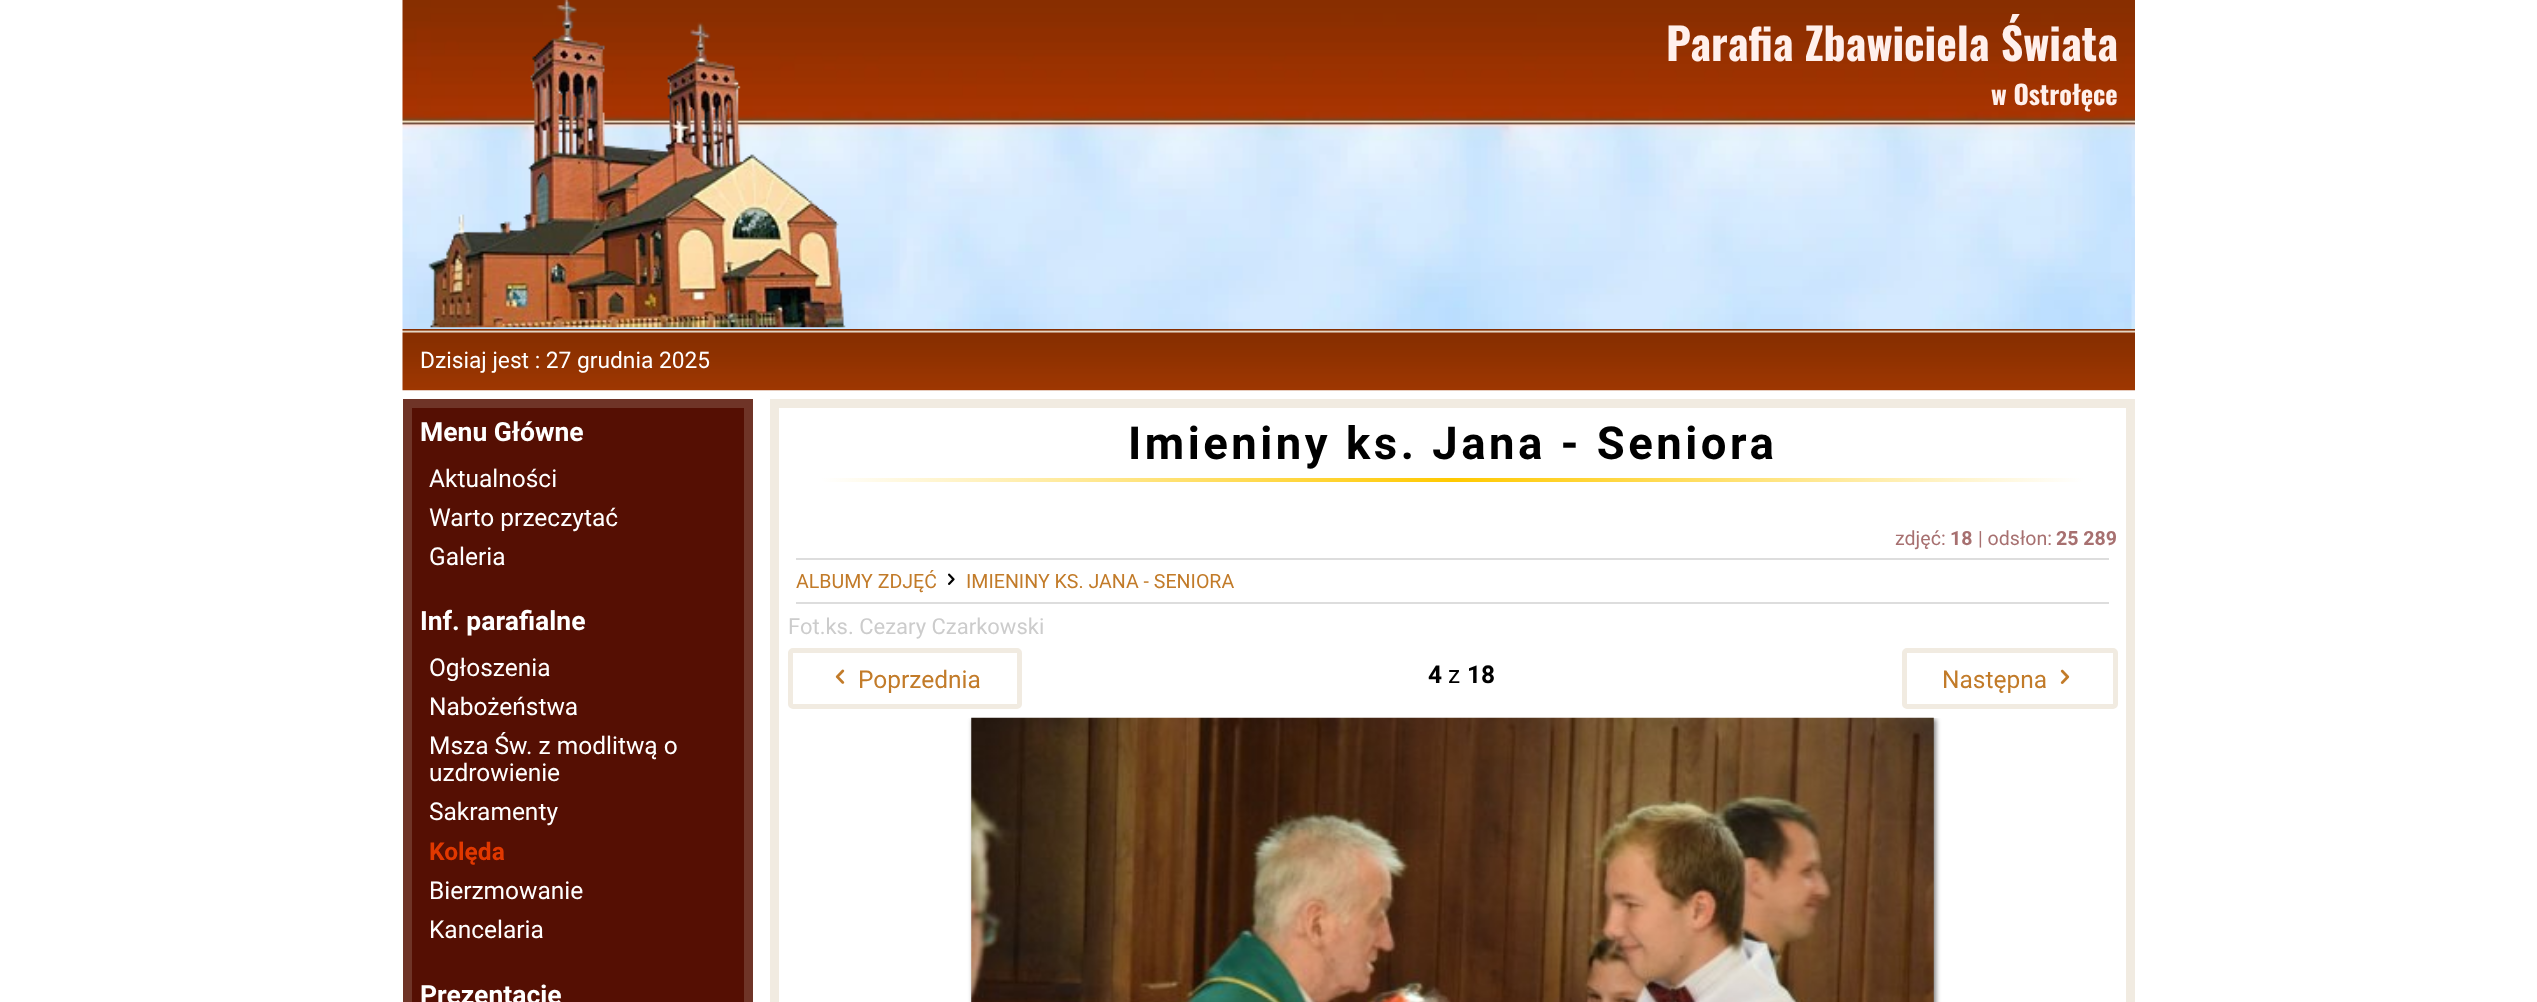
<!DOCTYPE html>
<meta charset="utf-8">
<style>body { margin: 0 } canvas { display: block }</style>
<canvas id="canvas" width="2537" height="1002"></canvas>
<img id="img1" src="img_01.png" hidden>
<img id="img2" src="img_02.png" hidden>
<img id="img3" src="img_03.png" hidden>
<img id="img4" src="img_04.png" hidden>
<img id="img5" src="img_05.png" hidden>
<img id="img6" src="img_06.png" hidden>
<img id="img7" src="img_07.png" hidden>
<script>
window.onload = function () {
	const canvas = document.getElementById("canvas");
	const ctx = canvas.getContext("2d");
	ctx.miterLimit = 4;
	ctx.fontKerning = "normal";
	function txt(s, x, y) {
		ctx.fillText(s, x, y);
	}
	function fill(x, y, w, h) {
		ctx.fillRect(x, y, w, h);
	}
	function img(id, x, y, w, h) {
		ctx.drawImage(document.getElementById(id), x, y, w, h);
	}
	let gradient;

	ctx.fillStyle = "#FFFFFF";
	fill(0, 0, 2537, 1002);
	img("img1", 402, 0, 1733, 329);
	img("img2", 428, 0, 418, 328);
	img("img3", 402, 329, 1733, 62);
	ctx.fillStyle = "#550F03";
	ctx.beginPath();
	ctx.rect(407.5, 403.5, 341, 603);
	ctx.fill();
	ctx.strokeStyle = "#6F3427";
	ctx.lineWidth = 9;
	ctx.stroke();
	ctx.strokeStyle = "#F1EBE1";
	ctx.strokeRect(774.5, 403.5, 1356, 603);
	gradient = ctx.createLinearGradient(821, 480, 2084, 480);
	gradient.addColorStop(0, "#FFFFFF");
	gradient.addColorStop(0.5, "#FFC900");
	gradient.addColorStop(1, "#FFFFFF");
	ctx.fillStyle = gradient;
	fill(821, 478, 1263, 4);
	ctx.fillStyle = "#DDDDDD";
	fill(796, 558, 1313, 2);
	img("img4", 948, 573, 7, 12);
	fill(796, 602, 1313, 2);
	ctx.beginPath();
	ctx.roundRect(790.5, 650.5, 229, 56, 2.5);
	ctx.lineWidth = 5;
	ctx.stroke();
	img("img5", 835, 669, 10, 15);
	ctx.beginPath();
	ctx.roundRect(1904.5, 650.5, 211, 56, 2.5);
	ctx.stroke();
	img("img6", 2060, 669, 10, 15);
	ctx.save();
	ctx.beginPath();
	ctx.rect(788, 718, 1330, 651);
	ctx.clip();
	ctx.fillStyle = "rgba(0, 0, 0, 0.5)";
	ctx.filter = "blur(2.5px)";
	ctx.beginPath();
	ctx.rect(973, 719, 963, 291);
	ctx.fill();
	ctx.filter = "none";
	ctx.restore();
	img("img7", 971, 717, 963, 285);
	ctx.font = "bold 43.75px Oswald";
	ctx.fillStyle = "#FFF0EC";
	txt("Parafia Zbawiciela Świata", 1666, 61);
	ctx.font = "bold 26.25px Oswald";
	txt("w Ostrołęce", 1991, 105);
	ctx.font = "22.75px Roboto";
	ctx.fillStyle = "#FFFFFF";
	txt("Dzisiaj jest : 27 grudnia 2025", 420, 368);
	ctx.font = "bold 26.5px Roboto";
	txt("Menu Główne", 420, 441);
	ctx.font = "24.5px Roboto";
	txt("Aktualności", 429, 487);
	txt("Warto przeczytać", 429, 526);
	txt("Galeria", 429, 565);
	ctx.font = "bold 26.5px Roboto";
	txt("Inf. parafialne", 420, 630);
	ctx.font = "24.5px Roboto";
	txt("Ogłoszenia", 429, 676);
	txt("Nabożeństwa", 429, 715);
	txt("Msza Św. z modlitwą o", 429, 754);
	txt("uzdrowienie", 429, 781);
	txt("Sakramenty", 429, 820);
	ctx.font = "bold 24.5px Roboto";
	ctx.fillStyle = "#E13800";
	txt("Kolęda", 429, 860);
	ctx.font = "24.5px Roboto";
	ctx.fillStyle = "#FFFFFF";
	txt("Bierzmowanie", 429, 899);
	txt("Kancelaria", 429, 938);
	ctx.font = "bold 26.5px Roboto";
	txt("Prezentacje", 420, 1004);
	ctx.letterSpacing = "3.5px";
	ctx.font = "bold 45.5px Roboto";
	ctx.fillStyle = "#000000";
	txt("Imieniny ks. Jana - Seniora", 1128, 459);
	ctx.letterSpacing = "0px";
	ctx.font = "19.6px Roboto";
	ctx.fillStyle = "#A77070";
	txt("zdjęć:", 1895, 545);
	ctx.font = "bold 19.6px Roboto";
	txt("18", 1950, 545);
	ctx.font = "19.6px Roboto";
	txt("| odsłon:", 1978, 545);
	ctx.font = "bold 19.6px Roboto";
	txt("25 289", 2056, 545);
	ctx.font = "19.6px Roboto";
	ctx.fillStyle = "#C27B29";
	txt("ALBUMY ZDJĘĆ", 796, 588);
	txt("IMIENINY KS. JANA - SENIORA", 966, 588);
	ctx.font = "22px Roboto";
	ctx.fillStyle = "#CCCCCC";
	txt("Fot.ks. Cezary Czarkowski", 788, 634);
	ctx.font = "24.5px Roboto";
	ctx.fillStyle = "#C27B29";
	txt("Poprzednia", 858, 688);
	ctx.font = "bold 24.5px Roboto";
	ctx.fillStyle = "#000000";
	txt("4", 1428, 683);
	ctx.font = "24.5px Roboto";
	txt("z", 1448, 683);
	ctx.font = "bold 24.5px Roboto";
	txt("18", 1467, 683);
	ctx.font = "24.5px Roboto";
	ctx.fillStyle = "#C27B29";
	txt("Następna", 1942, 688);
};
</script>
